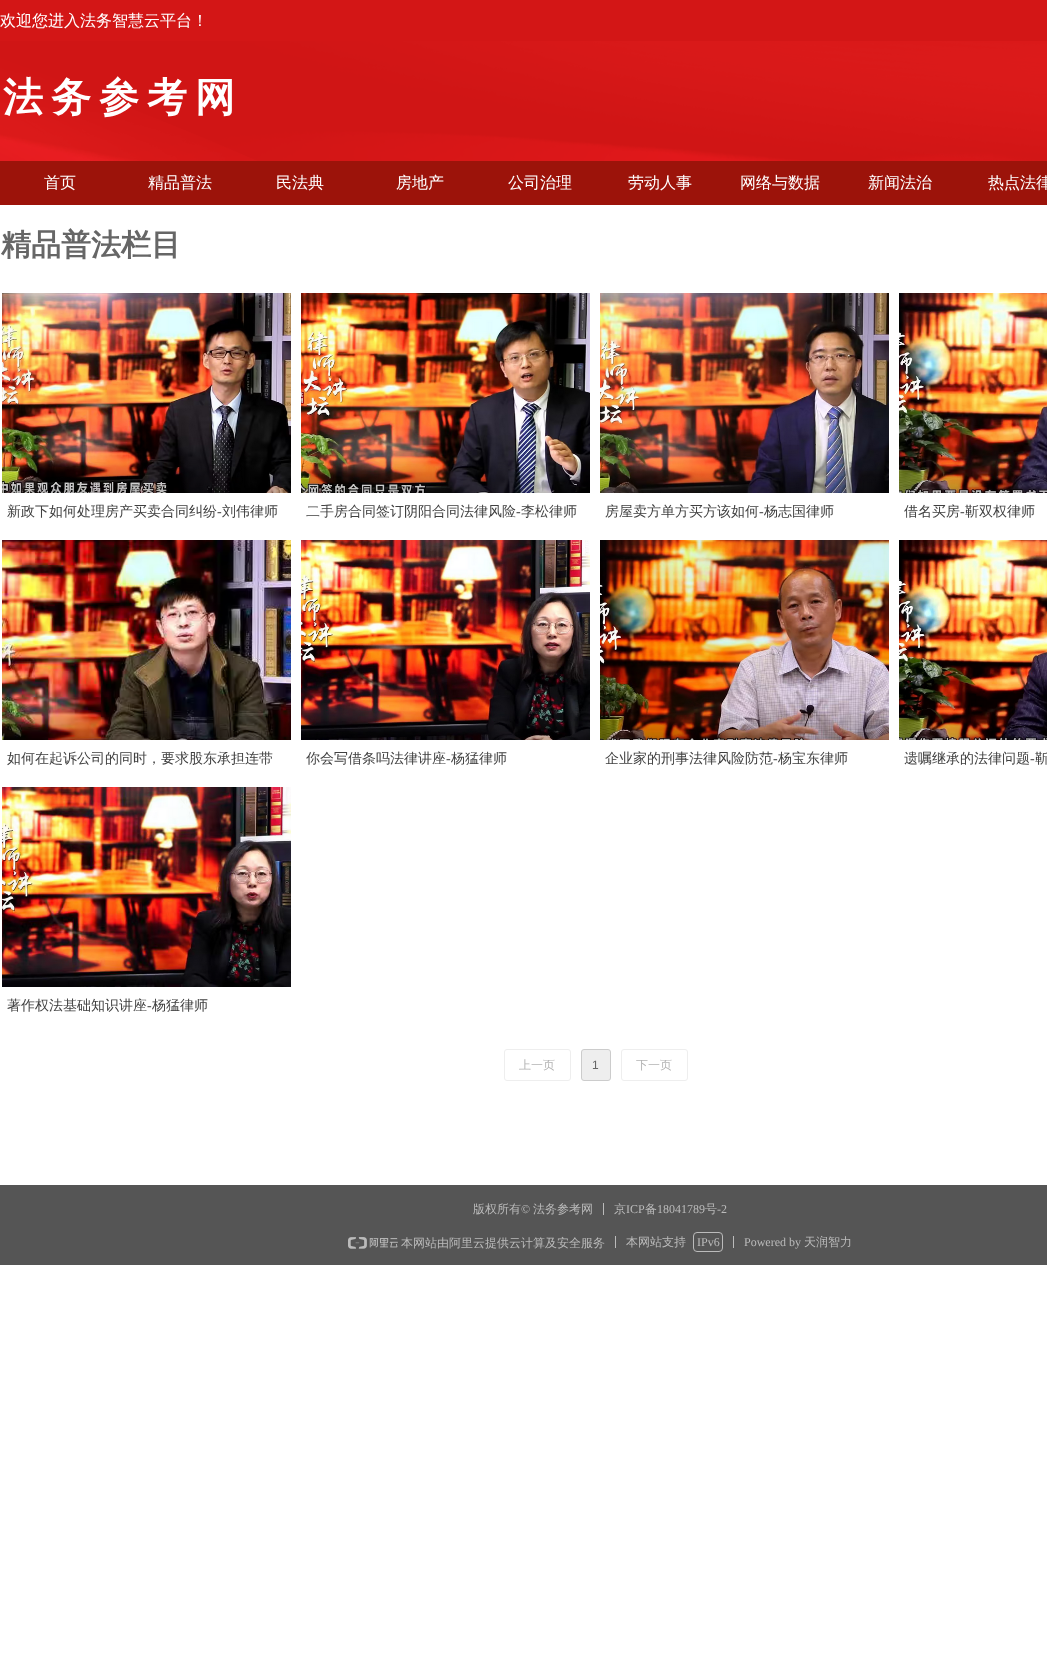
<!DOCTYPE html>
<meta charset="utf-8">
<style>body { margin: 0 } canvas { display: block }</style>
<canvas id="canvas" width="1047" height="1655"></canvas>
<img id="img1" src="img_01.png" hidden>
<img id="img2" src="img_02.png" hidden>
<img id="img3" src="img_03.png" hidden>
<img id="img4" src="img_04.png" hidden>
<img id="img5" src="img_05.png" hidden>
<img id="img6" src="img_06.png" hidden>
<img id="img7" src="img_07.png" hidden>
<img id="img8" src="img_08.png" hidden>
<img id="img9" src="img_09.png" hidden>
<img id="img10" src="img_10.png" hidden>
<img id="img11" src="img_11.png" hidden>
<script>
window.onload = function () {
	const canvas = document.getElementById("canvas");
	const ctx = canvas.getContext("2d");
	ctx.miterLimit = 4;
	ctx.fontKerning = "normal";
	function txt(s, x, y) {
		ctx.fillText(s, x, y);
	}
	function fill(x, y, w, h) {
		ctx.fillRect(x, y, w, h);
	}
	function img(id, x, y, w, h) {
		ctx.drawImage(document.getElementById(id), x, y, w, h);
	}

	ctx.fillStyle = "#FFFFFF";
	fill(0, 0, 1047, 1655);
	ctx.fillStyle = "#D31616";
	fill(0, 0, 1047, 41);
	img("img1", 0, 41, 1047, 120);
	ctx.fillStyle = "#9C130A";
	fill(0, 161, 1047, 44);
	img("img2", 2, 293, 289, 200);
	img("img3", 301, 293, 289, 200);
	img("img4", 600, 293, 289, 200);
	img("img5", 899, 293, 148, 200);
	img("img6", 2, 540, 289, 200);
	img("img7", 301, 540, 289, 200);
	img("img8", 600, 540, 289, 200);
	img("img9", 899, 540, 148, 200);
	img("img10", 2, 787, 289, 200);
	ctx.beginPath();
	ctx.roundRect(504.5, 1049.5, 66, 31, 2.5);
	ctx.strokeStyle = "#EEEEEE";
	ctx.stroke();
	ctx.fillStyle = "#EEEEEE";
	ctx.beginPath();
	ctx.roundRect(581.5, 1049.5, 29, 31, 2.5);
	ctx.fill();
	ctx.strokeStyle = "#CCCCCC";
	ctx.stroke();
	ctx.beginPath();
	ctx.roundRect(621.5, 1049.5, 66, 31, 2.5);
	ctx.strokeStyle = "#EEEEEE";
	ctx.stroke();
	ctx.fillStyle = "#555555";
	fill(0, 1185, 1047, 80);
	ctx.fillStyle = "#BBBBBB";
	fill(603, 1203, 1, 12);
	img("img11", 348, 1237, 50, 12);
	fill(615, 1236, 1, 12);
	ctx.beginPath();
	ctx.roundRect(693.5, 1232.5, 29, 19, 3.5);
	ctx.strokeStyle = "#BBBBBB";
	ctx.stroke();
	fill(733, 1236, 1, 12);
	ctx.font = "500 16px WenQuanYi Zen Hei";
	ctx.fillStyle = "#FFFFFF";
	txt("欢迎您进入法务智慧云平台！", 0, 26);
	ctx.letterSpacing = "8px";
	ctx.font = "bold 40px WenQuanYi Zen Hei";
	txt("法务参考网", 3, 111);
	ctx.letterSpacing = "0px";
	ctx.font = "500 16px WenQuanYi Zen Hei";
	txt("首页", 44, 188);
	txt("精品普法", 148, 188);
	txt("民法典", 276, 188);
	txt("房地产", 396, 188);
	txt("公司治理", 508, 188);
	txt("劳动人事", 628, 188);
	txt("网络与数据", 740, 188);
	txt("新闻法治", 868, 188);
	txt("热点法律", 988, 188);
	ctx.font = "bold 30px WenQuanYi Zen Hei";
	ctx.fillStyle = "#666666";
	txt("精品普法栏目", 1, 255);
	ctx.font = "500 14px WenQuanYi Zen Hei";
	ctx.fillStyle = "#404040";
	txt("新政下如何处理房产买卖合同纠纷", 7, 516);
	ctx.font = "14px Liberation Serif";
	txt("-", 217, 516);
	ctx.font = "500 14px WenQuanYi Zen Hei";
	txt("刘伟律师", 222, 516);
	txt("二手房合同签订阴阳合同法律风险", 306, 516);
	ctx.font = "14px Liberation Serif";
	txt("-", 516, 516);
	ctx.font = "500 14px WenQuanYi Zen Hei";
	txt("李松律师", 521, 516);
	txt("房屋卖方单方买方该如何", 605, 516);
	ctx.font = "14px Liberation Serif";
	txt("-", 759, 516);
	ctx.font = "500 14px WenQuanYi Zen Hei";
	txt("杨志国律师", 764, 516);
	txt("借名买房", 904, 516);
	ctx.font = "14px Liberation Serif";
	txt("-", 960, 516);
	ctx.font = "500 14px WenQuanYi Zen Hei";
	txt("靳双权律师", 965, 516);
	txt("如何在起诉公司的同时，要求股东承担连带", 7, 763);
	txt("你会写借条吗法律讲座", 306, 763);
	ctx.font = "14px Liberation Serif";
	txt("-", 446, 763);
	ctx.font = "500 14px WenQuanYi Zen Hei";
	txt("杨猛律师", 451, 763);
	txt("企业家的刑事法律风险防范", 605, 763);
	ctx.font = "14px Liberation Serif";
	txt("-", 773, 763);
	ctx.font = "500 14px WenQuanYi Zen Hei";
	txt("杨宝东律师", 778, 763);
	txt("遗嘱继承的法律问题", 904, 763);
	ctx.font = "14px Liberation Serif";
	txt("-", 1030, 763);
	ctx.font = "500 14px WenQuanYi Zen Hei";
	txt("靳", 1035, 763);
	txt("著作权法基础知识讲座", 7, 1010);
	ctx.font = "14px Liberation Serif";
	txt("-", 147, 1010);
	ctx.font = "500 14px WenQuanYi Zen Hei";
	txt("杨猛律师", 152, 1010);
	ctx.font = "500 12px WenQuanYi Zen Hei";
	ctx.fillStyle = "#B3B3B3";
	txt("上一页", 519, 1069);
	ctx.font = "12px Liberation Sans";
	ctx.fillStyle = "#666666";
	txt("1", 592, 1069);
	ctx.font = "500 12px WenQuanYi Zen Hei";
	ctx.fillStyle = "#B3B3B3";
	txt("下一页", 636, 1069);
	ctx.fillStyle = "#BBBBBB";
	txt("版权所有", 473, 1213);
	ctx.font = "12px Liberation Serif";
	txt("©", 521, 1213);
	ctx.font = "500 12px WenQuanYi Zen Hei";
	txt("法务参考网", 533, 1213);
	txt("京", 614, 1213);
	ctx.font = "12px Liberation Serif";
	txt("ICP", 626, 1213);
	ctx.font = "500 12px WenQuanYi Zen Hei";
	txt("备", 645, 1213);
	ctx.font = "12px Liberation Serif";
	txt("18041789", 657, 1213);
	ctx.font = "500 12px WenQuanYi Zen Hei";
	txt("号", 705, 1213);
	ctx.font = "12px Liberation Serif";
	txt("-2", 717, 1213);
	ctx.font = "500 12px WenQuanYi Zen Hei";
	txt("本网站由阿里云提供云计算及安全服务", 401, 1247);
	txt("本网站支持", 626, 1246);
	ctx.font = "12px Liberation Serif";
	txt("IPv6", 697, 1246);
	txt("Powered by", 744, 1246);
	ctx.font = "500 12px WenQuanYi Zen Hei";
	txt("天润智力", 804, 1246);
};
</script>
